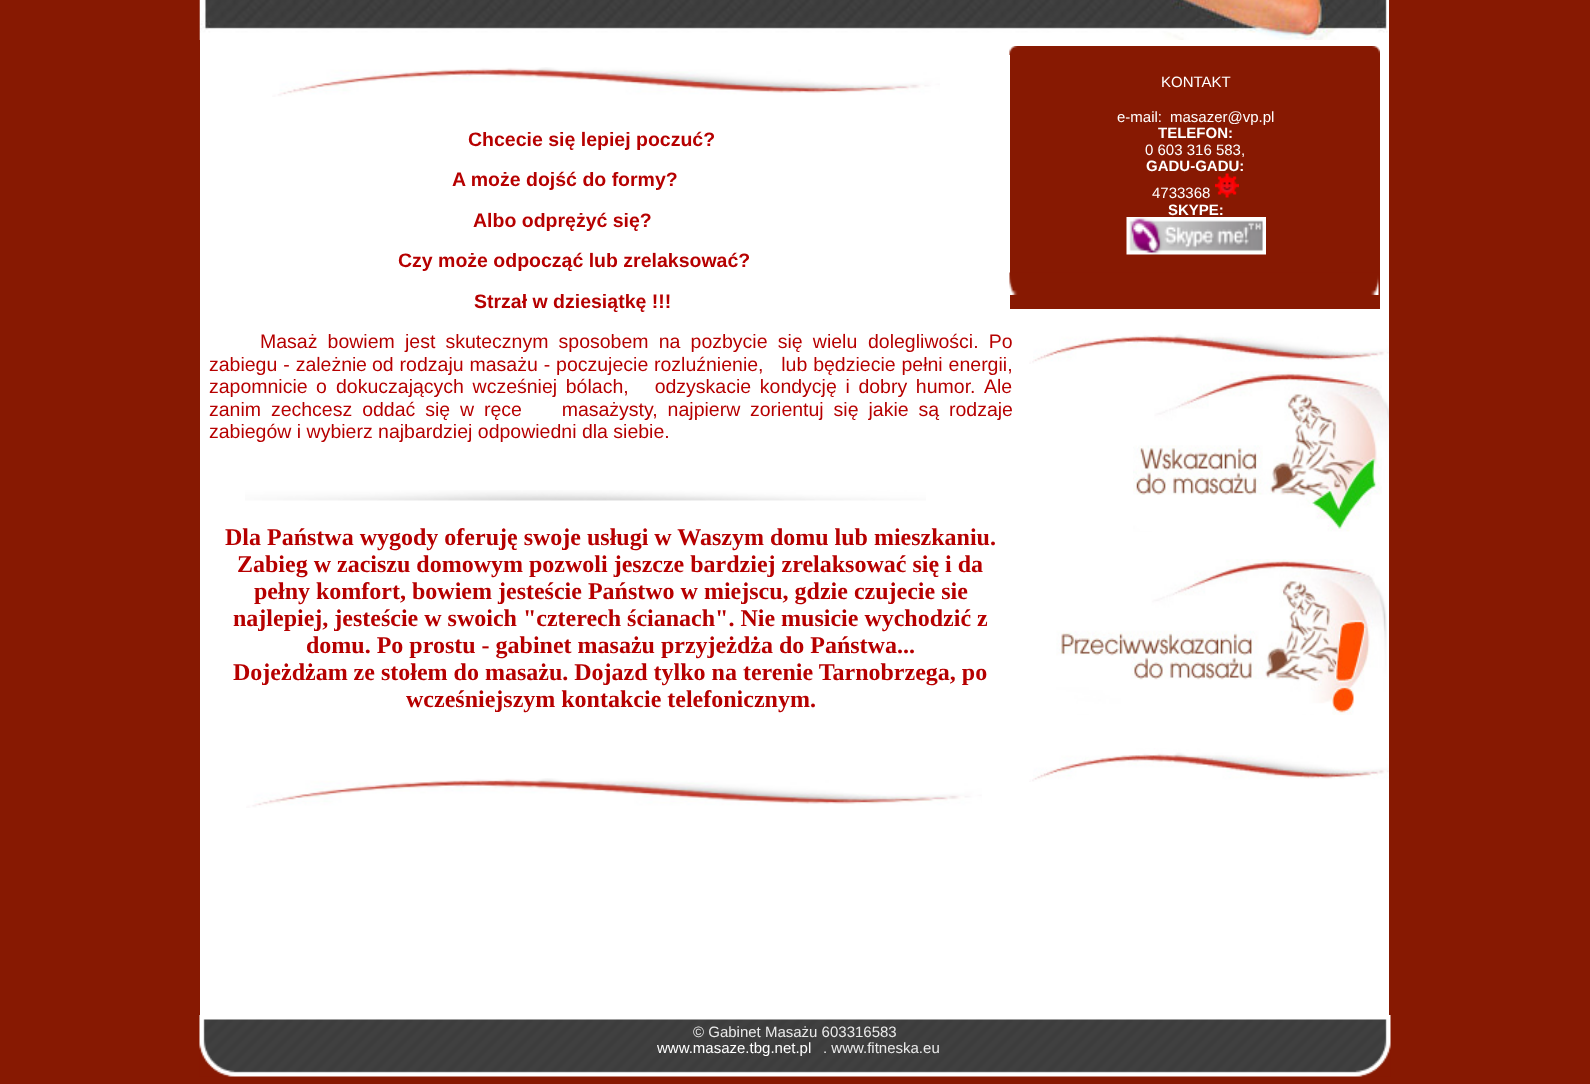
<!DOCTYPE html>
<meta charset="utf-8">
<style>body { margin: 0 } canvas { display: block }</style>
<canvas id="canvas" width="1590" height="1084"></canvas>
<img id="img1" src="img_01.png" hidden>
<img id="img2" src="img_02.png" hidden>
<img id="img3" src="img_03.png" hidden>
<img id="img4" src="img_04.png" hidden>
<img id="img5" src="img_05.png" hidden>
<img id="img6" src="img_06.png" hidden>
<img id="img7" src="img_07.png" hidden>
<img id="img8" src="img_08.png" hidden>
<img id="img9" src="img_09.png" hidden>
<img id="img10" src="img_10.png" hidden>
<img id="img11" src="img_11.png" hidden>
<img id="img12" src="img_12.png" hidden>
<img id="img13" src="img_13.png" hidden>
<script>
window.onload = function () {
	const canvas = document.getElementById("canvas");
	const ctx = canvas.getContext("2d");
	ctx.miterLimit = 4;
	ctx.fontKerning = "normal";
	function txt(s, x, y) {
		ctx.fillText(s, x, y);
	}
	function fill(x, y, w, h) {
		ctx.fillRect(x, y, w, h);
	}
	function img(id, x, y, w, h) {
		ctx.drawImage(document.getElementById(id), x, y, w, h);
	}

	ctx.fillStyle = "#871902";
	fill(0, 0, 1590, 1084);
	ctx.fillStyle = "#FFFFFF";
	fill(200, 0, 1189, 1015);
	img("img1", 199, 0, 1189, 40);
	img("img2", 272, 67, 668, 30);
	img("img3", 1029, 330, 360, 34);
	img("img4", 1133, 371, 256, 161);
	img("img5", 1056, 559, 331, 156);
	img("img6", 1029, 748, 360, 34);
	img("img7", 245, 490, 681, 11);
	img("img8", 246, 778, 736, 30);
	ctx.fillStyle = "#871902";
	fill(1010, 55, 370, 254);
	img("img9", 1009, 46, 371, 9);
	img("img10", 1215, 173, 24, 25);
	img("img11", 1126, 217, 140, 38);
	img("img12", 1009, 272, 370, 23);
	img("img13", 199, 1015, 1192, 62);
	ctx.font = "bold 19.5px Liberation Sans";
	ctx.fillStyle = "#B60000";
	txt("Chcecie się lepiej poczuć?", 468, 146);
	txt("A może dojść do formy?", 452, 186);
	txt("Albo odprężyć się?", 473, 227);
	txt("Czy może odpocząć lub zrelaksować?", 398, 267);
	txt("Strzał w dziesiątkę !!!", 474, 308);
	ctx.wordSpacing = "4.75px";
	ctx.font = "19.5px Liberation Sans";
	txt("Masaż bowiem jest skutecznym sposobem na pozbycie się wielu", 260, 348);
	txt("dolegliwości. Po", 868, 348);
	ctx.wordSpacing = "0.5px";
	txt("zabiegu - zależni", 209, 371);
	ctx.wordSpacing = "0px";
	txt("e", 356, 371);
	ctx.wordSpacing = "0.5px";
	txt("od rodzaju masażu - poczujecie", 372, 371);
	txt("rozluźnienie,   lub będziecie pełni energii,", 654, 371);
	ctx.wordSpacing = "3px";
	txt("zapomnicie o", 209, 393);
	ctx.wordSpacing = "3.25px";
	txt("dokuczających wcześniej bólach,   odzyskacie kondycję i dobry humor.", 336, 393);
	ctx.wordSpacing = "0px";
	txt("Ale", 984, 393);
	ctx.wordSpacing = "4.5px";
	txt("zanim zechcesz oddać się w ręce    masażysty, najpierw", 209, 416);
	txt("zorientuj się jakie są rodzaje", 750, 416);
	ctx.wordSpacing = "0px";
	txt("zabiegów i wybierz najbardziej odpowiedni dla siebie.", 209, 438);
	ctx.font = "bold 24px Liberation Serif";
	txt("Dla Państwa wygody oferuję swoje usługi w Waszym domu lub mieszkaniu.", 225, 545);
	txt("Zabieg w zaciszu domowym pozwoli jeszcze bardziej zrelaksować się i da", 237, 572);
	txt("pełny komfort, bowiem jesteście Państwo w miejscu, gdzie czujecie sie", 254, 599);
	txt("najlepiej, jesteście w swoich \"czterech ścianach\". Nie musicie wychodzić z", 233, 626);
	txt("domu. Po prostu - gabinet masażu przyjeżdża do Państwa...", 306, 653);
	txt("Dojeżdżam ze stołem do masażu. Dojazd tylko na terenie Tarnobrzega, po", 233, 680);
	txt("wcześniejszym kontakcie telefonicznym.", 406, 707);
	ctx.font = "15px Liberation Sans";
	ctx.fillStyle = "#FFFFFF";
	txt("KONTAKT", 1161, 87);
	txt("e-mail:", 1117, 122);
	txt("masazer@vp.pl", 1170, 122);
	ctx.font = "bold 15px Liberation Sans";
	txt("TELEFON:", 1158, 138);
	ctx.font = "15px Liberation Sans";
	txt("0 603 316 583,", 1145, 155);
	ctx.font = "bold 15px Liberation Sans";
	txt("GADU-GADU:", 1146, 171);
	ctx.font = "15px Liberation Sans";
	txt("4733368", 1152, 198);
	ctx.font = "bold 15px Liberation Sans";
	txt("SKYPE:", 1168, 215);
	ctx.font = "15px Liberation Sans";
	ctx.fillStyle = "#EAEAEA";
	txt("© Gabinet Masażu 603316583", 693, 1037);
	ctx.fillStyle = "#FFFFFF";
	txt("www.masaze.tbg.net.pl", 657, 1053);
	ctx.fillStyle = "#EAEAEA";
	txt(". www.fitneska.eu", 823, 1053);
};
</script>
